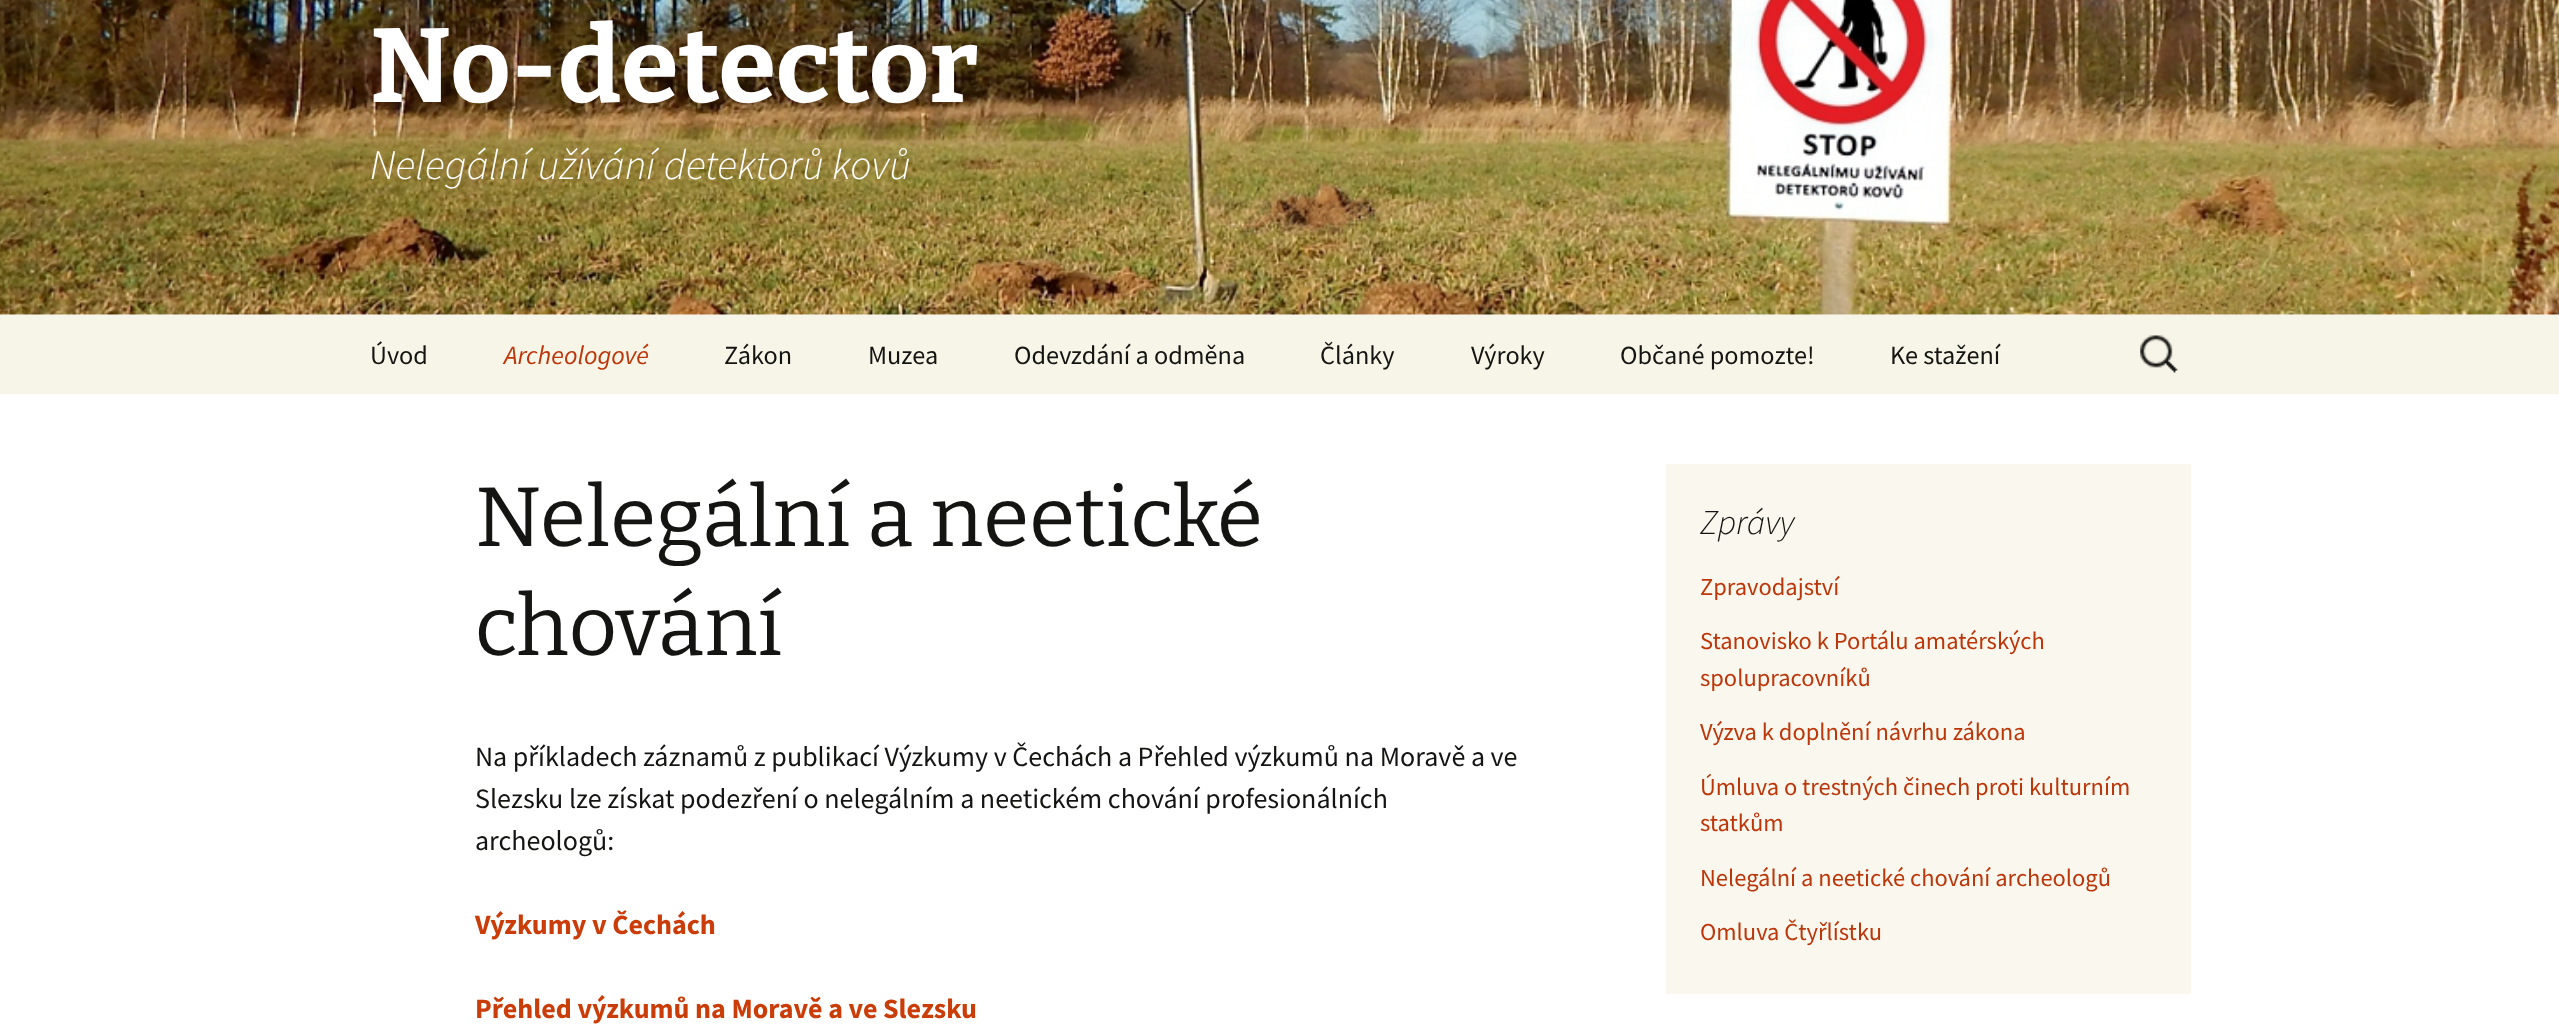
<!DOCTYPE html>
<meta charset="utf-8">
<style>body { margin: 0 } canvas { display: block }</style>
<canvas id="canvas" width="2559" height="1028"></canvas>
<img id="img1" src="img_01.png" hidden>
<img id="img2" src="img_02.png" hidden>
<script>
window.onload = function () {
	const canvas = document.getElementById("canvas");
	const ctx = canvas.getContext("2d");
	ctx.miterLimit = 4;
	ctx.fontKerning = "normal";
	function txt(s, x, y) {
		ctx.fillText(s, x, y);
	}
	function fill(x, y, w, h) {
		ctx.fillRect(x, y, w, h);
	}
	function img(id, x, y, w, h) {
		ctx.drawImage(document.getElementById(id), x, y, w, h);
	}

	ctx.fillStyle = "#FFFFFF";
	fill(0, 0, 2559, 1028);
	img("img1", 0, 0, 2559, 315);
	ctx.fillStyle = "#F7F5E7";
	fill(0, 315, 2559, 79);
	img("img2", 2140, 335, 38, 38);
	ctx.fillStyle = "#FAF8EE";
	fill(1666, 464, 525, 530);
	ctx.font = "bold 105px Bitter";
	ctx.fillStyle = "#FFFFFF";
	txt("No-detector", 370, 102);
	ctx.font = "italic 300 42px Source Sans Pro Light";
	txt("Nelegální užívání detektorů kovů", 370, 179);
	ctx.font = "26.25px Source Sans Pro";
	ctx.fillStyle = "#141412";
	txt("Úvod", 370, 364);
	ctx.font = "italic 26.25px Source Sans Pro";
	ctx.fillStyle = "#BC360A";
	txt("Archeologové", 504, 364);
	ctx.font = "26.25px Source Sans Pro";
	ctx.fillStyle = "#141412";
	txt("Zákon", 724, 364);
	txt("Muzea", 868, 364);
	txt("Odevzdání a odměna", 1014, 364);
	txt("Články", 1320, 364);
	txt("Výroky", 1471, 364);
	txt("Občané pomozte!", 1620, 364);
	txt("Ke stažení", 1890, 364);
	ctx.font = "84px Bitter";
	txt("Nelegální a neetické", 475, 546);
	txt("chování", 475, 655);
	ctx.font = "28px Source Sans Pro";
	txt("Na příkladech záznamů z publikací Výzkumy v Čechách a Přehled výzkumů na Moravě a ve", 475, 766);
	txt("Slezsku lze získat podezření o nelegálním a neetickém chování profesionálních", 475, 808);
	txt("archeologů:", 475, 850);
	ctx.font = "bold 28px Source Sans Pro";
	ctx.fillStyle = "#CA3C08";
	txt("Výzkumy v Čechách", 475, 934);
	txt("Přehled výzkumů na Moravě a ve Slezsku", 475, 1018);
	ctx.font = "italic 300 35px Source Sans Pro Light";
	ctx.fillStyle = "#141412";
	txt("Zprávy", 1700, 534);
	ctx.font = "24.5px Source Sans Pro";
	ctx.fillStyle = "#BC360A";
	txt("Zpravodajství", 1700, 595);
	txt("Stanovisko k Portálu amatérských", 1700, 649);
	txt("spolupracovníků", 1700, 686);
	txt("Výzva k doplnění návrhu zákona", 1700, 740);
	txt("Úmluva o trestných činech proti kulturním", 1700, 795);
	txt("statkům", 1700, 831);
	txt("Nelegální a neetické chování archeologů", 1700, 886);
	txt("Omluva Čtyřlístku", 1700, 940);
};
</script>
